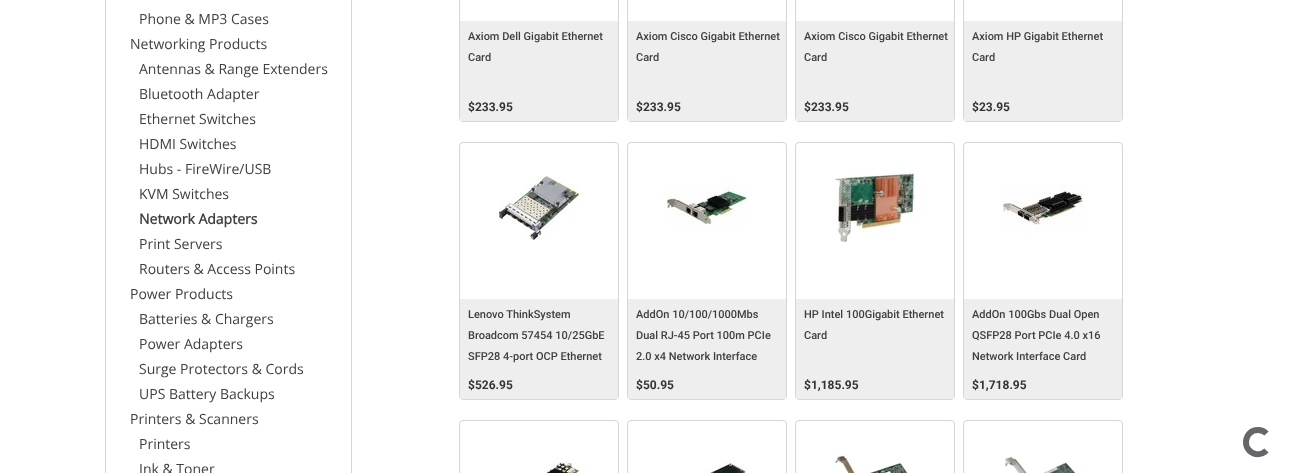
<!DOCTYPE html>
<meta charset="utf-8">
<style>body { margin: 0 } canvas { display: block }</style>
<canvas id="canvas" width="1289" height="473"></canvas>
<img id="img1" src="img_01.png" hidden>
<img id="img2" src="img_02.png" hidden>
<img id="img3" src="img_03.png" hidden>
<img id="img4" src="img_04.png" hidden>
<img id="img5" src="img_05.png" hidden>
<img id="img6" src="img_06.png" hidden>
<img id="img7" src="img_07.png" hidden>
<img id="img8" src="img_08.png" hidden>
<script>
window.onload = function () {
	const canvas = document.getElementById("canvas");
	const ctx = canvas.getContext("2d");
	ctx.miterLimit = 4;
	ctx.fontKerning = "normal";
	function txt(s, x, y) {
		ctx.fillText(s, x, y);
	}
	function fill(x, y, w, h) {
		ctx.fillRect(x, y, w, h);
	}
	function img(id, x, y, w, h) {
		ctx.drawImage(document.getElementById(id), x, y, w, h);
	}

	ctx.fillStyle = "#FFFFFF";
	fill(0, 0, 1289, 473);
	ctx.strokeStyle = "#D6D6D6";
	ctx.strokeRect(105.5, -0.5, 246, 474);
	ctx.beginPath();
	ctx.roundRect(459.5, -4.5, 159, 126, 3.5);
	ctx.stroke();
	ctx.fillStyle = "#EEEEEE";
	fill(460, 21, 158, 100);
	ctx.beginPath();
	ctx.roundRect(627.5, -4.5, 159, 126, 3.5);
	ctx.stroke();
	fill(628, 21, 158, 100);
	ctx.beginPath();
	ctx.roundRect(795.5, -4.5, 159, 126, 3.5);
	ctx.stroke();
	fill(796, 21, 158, 100);
	ctx.beginPath();
	ctx.roundRect(963.5, -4.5, 159, 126, 3.5);
	ctx.stroke();
	fill(964, 21, 158, 100);
	ctx.beginPath();
	ctx.roundRect(459.5, 142.5, 159, 257, 3.5);
	ctx.stroke();
	img("img1", 499, 176, 80, 64);
	fill(460, 299, 158, 100);
	ctx.beginPath();
	ctx.roundRect(627.5, 142.5, 159, 257, 3.5);
	ctx.stroke();
	img("img2", 667, 184, 80, 42);
	fill(628, 299, 158, 100);
	ctx.beginPath();
	ctx.roundRect(795.5, 142.5, 159, 257, 3.5);
	ctx.stroke();
	img("img3", 835, 171, 80, 71);
	fill(796, 299, 158, 100);
	ctx.beginPath();
	ctx.roundRect(963.5, 142.5, 159, 257, 3.5);
	ctx.stroke();
	img("img4", 1003, 184, 80, 48);
	fill(964, 299, 158, 100);
	ctx.beginPath();
	ctx.roundRect(459.5, 420.5, 159, 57, 3.5);
	ctx.stroke();
	img("img5", 541, 462, 38, 11);
	ctx.beginPath();
	ctx.roundRect(627.5, 420.5, 159, 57, 3.5);
	ctx.stroke();
	img("img6", 699, 462, 48, 11);
	ctx.beginPath();
	ctx.roundRect(795.5, 420.5, 159, 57, 3.5);
	ctx.stroke();
	img("img7", 835, 454, 73, 19);
	ctx.beginPath();
	ctx.roundRect(963.5, 420.5, 159, 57, 3.5);
	ctx.stroke();
	img("img8", 1005, 456, 71, 17);
	ctx.beginPath();
	ctx.moveTo(1266.5, 450.5);
	ctx.bezierCurveTo(1263.5, 453.5, 1259.5, 454.5, 1255.5, 454);
	ctx.bezierCurveTo(1241.5, 451, 1243.5, 430, 1258, 430);
	ctx.bezierCurveTo(1261, 430, 1264.5, 431.5, 1266.5, 433.5);
	ctx.strokeStyle = "#646669";
	ctx.lineWidth = 6;
	ctx.stroke();
	ctx.font = "14px Open Sans";
	ctx.fillStyle = "#404040";
	txt("Phone & MP3 Cases", 139, 24);
	txt("Networking Products", 130, 49);
	txt("Antennas & Range Extenders", 139, 74);
	txt("Bluetooth Adapter", 139, 99);
	txt("Ethernet Switches", 139, 124);
	txt("HDMI Switches", 139, 149);
	txt("Hubs - FireWire/USB", 139, 174);
	txt("KVM Switches", 139, 199);
	ctx.font = "bold 14px Open Sans";
	txt("Network Adapters", 139, 224);
	ctx.font = "14px Open Sans";
	txt("Print Servers", 139, 249);
	txt("Routers & Access Points", 139, 274);
	txt("Power Products", 130, 299);
	txt("Batteries & Chargers", 139, 324);
	txt("Power Adapters", 139, 349);
	txt("Surge Protectors & Cords", 139, 374);
	txt("UPS Battery Backups", 139, 399);
	txt("Printers & Scanners", 130, 424);
	txt("Printers", 139, 449);
	txt("Ink & Toner", 139, 474);
	ctx.font = "500 11px Roboto";
	txt("Axiom Dell Gigabit Ethernet", 468, 40);
	txt("Card", 468, 61);
	ctx.font = "bold 12px Roboto";
	ctx.fillStyle = "#333333";
	txt("$233.95", 468, 111);
	ctx.font = "500 11px Roboto";
	ctx.fillStyle = "#404040";
	txt("Axiom Cisco Gigabit Ethernet", 636, 40);
	txt("Card", 636, 61);
	ctx.font = "bold 12px Roboto";
	ctx.fillStyle = "#333333";
	txt("$233.95", 636, 111);
	ctx.font = "500 11px Roboto";
	ctx.fillStyle = "#404040";
	txt("Axiom Cisco Gigabit Ethernet", 804, 40);
	txt("Card", 804, 61);
	ctx.font = "bold 12px Roboto";
	ctx.fillStyle = "#333333";
	txt("$233.95", 804, 111);
	ctx.font = "500 11px Roboto";
	ctx.fillStyle = "#404040";
	txt("Axiom HP Gigabit Ethernet", 972, 40);
	txt("Card", 972, 61);
	ctx.font = "bold 12px Roboto";
	ctx.fillStyle = "#333333";
	txt("$23.95", 972, 111);
	ctx.font = "500 11px Roboto";
	ctx.fillStyle = "#404040";
	txt("Lenovo ThinkSystem", 468, 318);
	txt("Broadcom 57454 10/25GbE", 468, 339);
	txt("SFP28 4-port OCP Ethernet", 468, 360);
	ctx.font = "bold 12px Roboto";
	ctx.fillStyle = "#333333";
	txt("$526.95", 468, 389);
	ctx.font = "500 11px Roboto";
	ctx.fillStyle = "#404040";
	txt("AddOn 10/100/1000Mbs", 636, 318);
	txt("Dual RJ-45 Port 100m PCIe", 636, 339);
	txt("2.0 x4 Network Interface", 636, 360);
	ctx.font = "bold 12px Roboto";
	ctx.fillStyle = "#333333";
	txt("$50.95", 636, 389);
	ctx.font = "500 11px Roboto";
	ctx.fillStyle = "#404040";
	txt("HP Intel 100Gigabit Ethernet", 804, 318);
	txt("Card", 804, 339);
	ctx.font = "bold 12px Roboto";
	ctx.fillStyle = "#333333";
	txt("$1,185.95", 804, 389);
	ctx.font = "500 11px Roboto";
	ctx.fillStyle = "#404040";
	txt("AddOn 100Gbs Dual Open", 972, 318);
	txt("QSFP28 Port PCIe 4.0 x16", 972, 339);
	txt("Network Interface Card", 972, 360);
	ctx.font = "bold 12px Roboto";
	ctx.fillStyle = "#333333";
	txt("$1,718.95", 972, 389);
};
</script>
